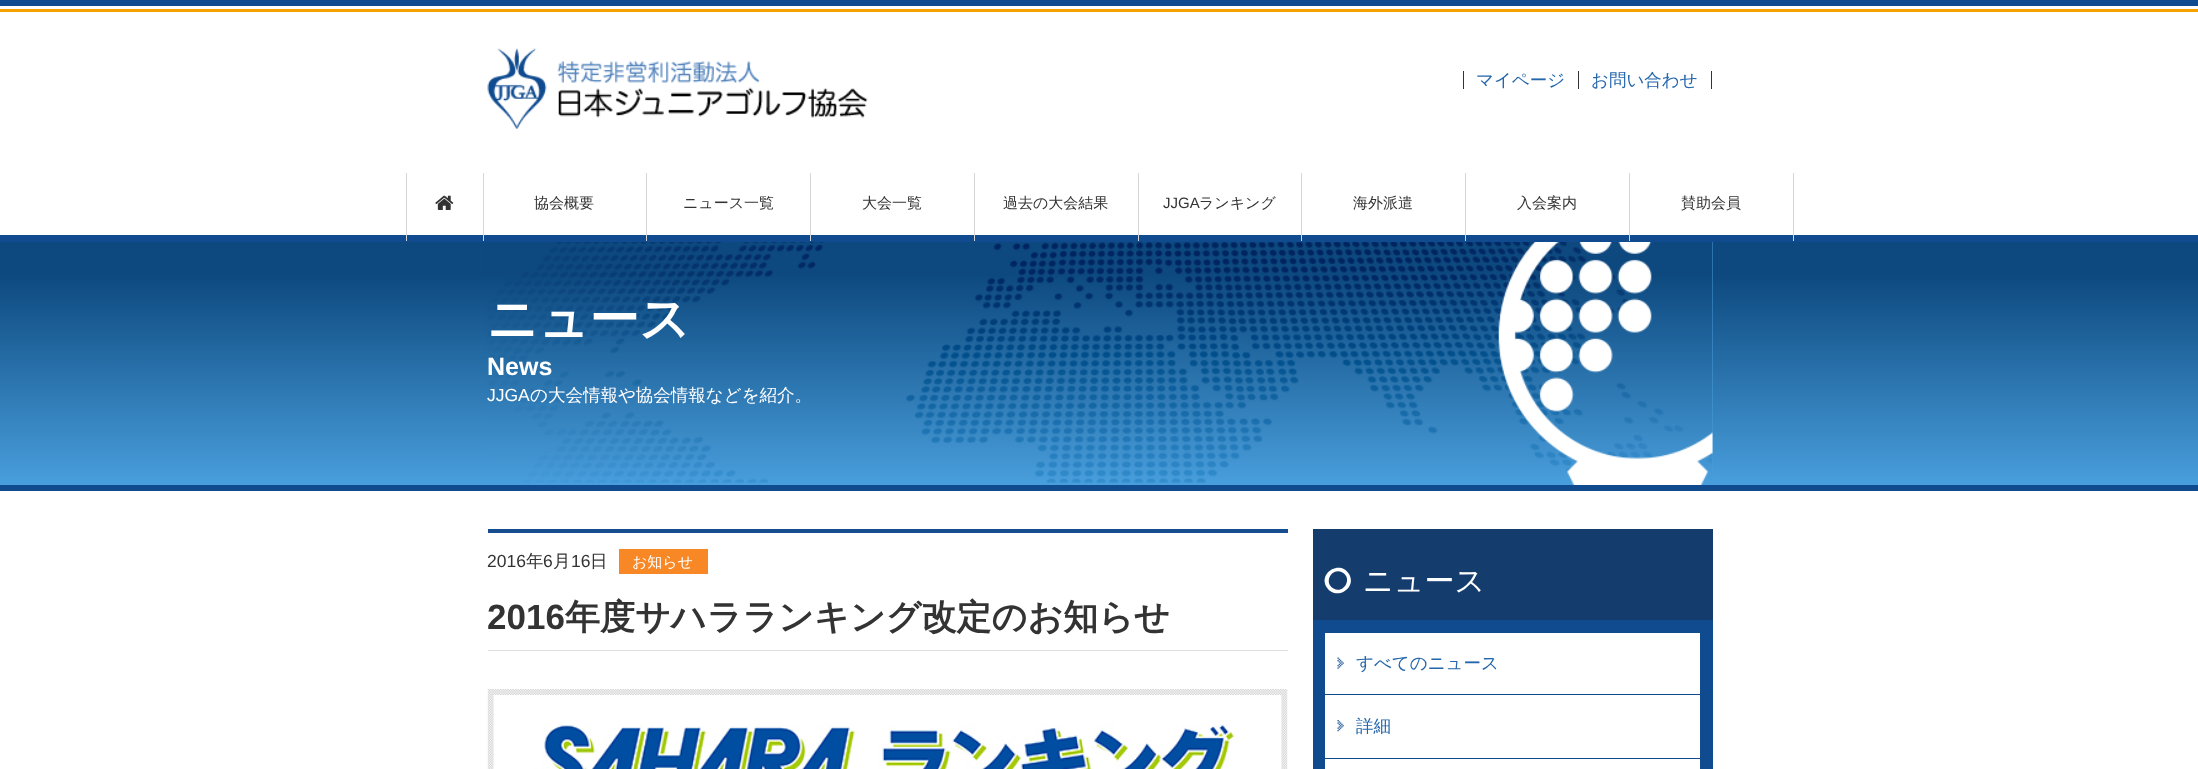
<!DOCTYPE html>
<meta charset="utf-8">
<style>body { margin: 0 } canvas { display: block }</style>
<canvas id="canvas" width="2198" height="769"></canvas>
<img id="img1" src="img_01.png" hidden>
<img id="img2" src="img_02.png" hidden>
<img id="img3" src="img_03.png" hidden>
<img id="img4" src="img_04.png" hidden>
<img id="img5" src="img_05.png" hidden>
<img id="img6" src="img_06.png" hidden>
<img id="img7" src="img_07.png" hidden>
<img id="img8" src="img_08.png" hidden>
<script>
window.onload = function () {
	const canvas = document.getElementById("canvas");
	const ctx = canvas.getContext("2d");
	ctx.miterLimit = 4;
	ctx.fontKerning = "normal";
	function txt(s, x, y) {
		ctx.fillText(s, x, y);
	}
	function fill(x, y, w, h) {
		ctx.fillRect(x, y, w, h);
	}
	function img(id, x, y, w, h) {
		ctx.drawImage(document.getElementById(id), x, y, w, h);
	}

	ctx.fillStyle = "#FFFFFF";
	fill(0, 0, 2198, 769);
	ctx.fillStyle = "#104B90";
	fill(0, 0, 2198, 6);
	ctx.fillStyle = "#F5A100";
	fill(0, 9, 2198, 3);
	img("img1", 487, 48, 381, 81);
	ctx.fillStyle = "#333333";
	fill(1578, 71, 1, 18);
	fill(1463, 71, 1, 18);
	fill(1711, 71, 1, 18);
	ctx.fillStyle = "#104B90";
	fill(0, 235, 2198, 7);
	ctx.fillStyle = "#D6D6D6";
	fill(1793, 173, 1, 68);
	fill(406, 173, 1, 68);
	img("img2", 435, 195, 19, 15);
	fill(483, 173, 1, 68);
	fill(646, 173, 1, 68);
	fill(810, 173, 1, 68);
	fill(974, 173, 1, 68);
	fill(1138, 173, 1, 68);
	fill(1301, 173, 1, 68);
	fill(1465, 173, 1, 68);
	fill(1629, 173, 1, 68);
	img("img3", 0, 242, 2198, 243);
	ctx.fillStyle = "#104B90";
	fill(0, 485, 2198, 6);
	ctx.fillStyle = "#499EDC";
	fill(1712, 242, 1, 243);
	img("img4", 487, 242, 1226, 243);
	ctx.fillStyle = "#154D8E";
	fill(488, 529, 800, 4);
	ctx.fillStyle = "#F78825";
	fill(619, 549, 89, 25);
	ctx.fillStyle = "#DEDEDE";
	fill(488, 650, 800, 1);
	img("img5", 487, 689, 801, 80);
	img("img6", 493, 695, 789, 74);
	ctx.fillStyle = "#143D6E";
	fill(1313, 529, 400, 91);
	ctx.fillStyle = "#FFFFFF";
	ctx.beginPath();
	ctx.moveTo(1342.5, 572.5);
	ctx.bezierCurveTo(1332, 566.5, 1323, 582.5, 1333.5, 588.5);
	ctx.bezierCurveTo(1343.5, 594.5, 1353, 578.5, 1342.5, 572.5);
	ctx.closePath();
	ctx.moveTo(1349, 574);
	ctx.bezierCurveTo(1357.5, 588.5, 1335.5, 601.5, 1326.5, 587);
	ctx.bezierCurveTo(1318, 572.5, 1340.5, 559.5, 1349, 574);
	ctx.closePath();
	ctx.fill();
	ctx.fillStyle = "#104B90";
	fill(1313, 620, 400, 149);
	ctx.fillStyle = "#FFFFFF";
	fill(1325, 633, 375, 61);
	img("img7", 1337, 657, 7, 12);
	fill(1325, 695, 375, 63);
	img("img8", 1337, 720, 7, 12);
	fill(1325, 759, 375, 10);
	ctx.font = "500 17.5px WenQuanYi Zen Hei";
	ctx.fillStyle = "#2466AB";
	txt("マイページ", 1476, 86);
	txt("お問い合わせ", 1591, 86);
	ctx.font = "500 15px WenQuanYi Zen Hei";
	ctx.fillStyle = "#333333";
	txt("協会概要", 534, 208);
	txt("ニュース一覧", 683, 208);
	txt("大会一覧", 862, 208);
	txt("過去の大会結果", 1003, 208);
	ctx.font = "15px Liberation Sans";
	txt("JJGA", 1163, 208);
	ctx.font = "500 15px WenQuanYi Zen Hei";
	txt("ランキング", 1199, 208);
	txt("海外派遣", 1353, 208);
	txt("入会案内", 1517, 208);
	txt("賛助会員", 1681, 208);
	ctx.font = "bold 50px WenQuanYi Zen Hei";
	ctx.fillStyle = "#FFFFFF";
	txt("ニュース", 487, 336);
	ctx.font = "bold 25px Liberation Sans";
	txt("News", 487, 375);
	ctx.font = "17.5px Liberation Sans";
	txt("JJGA", 487, 401);
	ctx.font = "500 17.5px WenQuanYi Zen Hei";
	txt("の大会情報や協会情報などを紹介。", 530, 401);
	ctx.font = "17.5px Liberation Sans";
	ctx.fillStyle = "#333333";
	txt("2016", 487, 567);
	ctx.font = "500 17.5px WenQuanYi Zen Hei";
	txt("年", 526, 567);
	ctx.font = "17.5px Liberation Sans";
	txt("6", 543, 567);
	ctx.font = "500 17.5px WenQuanYi Zen Hei";
	txt("月", 553, 567);
	ctx.font = "17.5px Liberation Sans";
	txt("16", 571, 567);
	ctx.font = "500 17.5px WenQuanYi Zen Hei";
	txt("日", 590, 567);
	ctx.font = "500 15px WenQuanYi Zen Hei";
	ctx.fillStyle = "#FFFFFF";
	txt("お知らせ", 632, 567);
	ctx.font = "bold 35px Liberation Sans";
	ctx.fillStyle = "#333333";
	txt("2016", 487, 629);
	ctx.font = "bold 35px WenQuanYi Zen Hei";
	txt("年度サハラランキング改定のお知らせ", 565, 629);
	ctx.font = "500 30px WenQuanYi Zen Hei";
	ctx.fillStyle = "#FFFFFF";
	txt("ニュース", 1363, 591);
	ctx.font = "500 17.5px WenQuanYi Zen Hei";
	ctx.fillStyle = "#2466AB";
	txt("すべてのニュース", 1356, 669);
	txt("詳細", 1356, 732);
};
</script>
